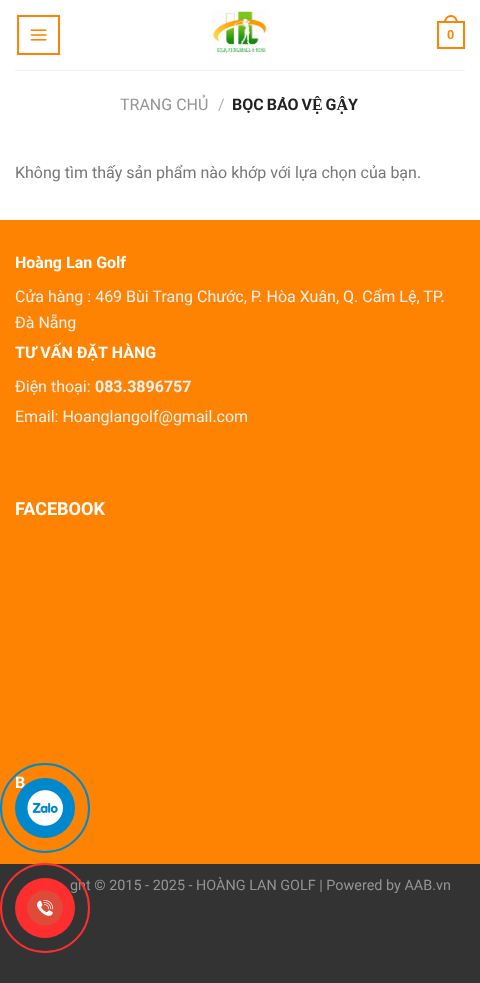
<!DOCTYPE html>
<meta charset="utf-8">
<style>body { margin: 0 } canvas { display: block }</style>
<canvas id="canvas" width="480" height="983"></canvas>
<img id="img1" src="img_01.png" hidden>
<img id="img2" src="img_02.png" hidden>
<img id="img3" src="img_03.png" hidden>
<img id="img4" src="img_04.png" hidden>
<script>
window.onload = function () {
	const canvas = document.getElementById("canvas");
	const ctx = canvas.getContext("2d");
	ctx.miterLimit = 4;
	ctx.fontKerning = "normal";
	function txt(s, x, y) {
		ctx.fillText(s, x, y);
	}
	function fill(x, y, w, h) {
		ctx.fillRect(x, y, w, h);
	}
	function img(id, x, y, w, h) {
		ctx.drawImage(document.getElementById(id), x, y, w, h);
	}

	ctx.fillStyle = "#333333";
	fill(0, 0, 480, 983);
	ctx.fillStyle = "#FFFFFF";
	fill(0, 0, 480, 220);
	ctx.strokeStyle = "#FF8302";
	ctx.lineWidth = 2;
	ctx.strokeRect(18, 16, 41, 38);
	img("img1", 30, 29, 17, 12);
	img("img2", 212, 10, 55, 44);
	ctx.strokeRect(438, 22, 26, 26);
	ctx.fillStyle = "#FF8302";
	ctx.beginPath();
	ctx.moveTo(451, 15);
	ctx.bezierCurveTo(455.5, 15, 458, 19, 458, 23);
	ctx.lineTo(444, 23);
	ctx.bezierCurveTo(444, 19, 446.5, 15, 451, 15);
	ctx.closePath();
	ctx.moveTo(451, 17);
	ctx.bezierCurveTo(454.5, 17, 456, 20, 456, 23);
	ctx.lineTo(446, 23);
	ctx.bezierCurveTo(446, 20, 447.5, 17, 451, 17);
	ctx.closePath();
	ctx.fill("evenodd");
	ctx.fillStyle = "#F1F1F1";
	fill(15, 70, 450, 1);
	ctx.fillStyle = "#FF8302";
	fill(0, 220, 480, 644);
	ctx.font = "bold 13px Liberation Sans";
	txt("0", 447, 39);
	ctx.font = "16px Roboto";
	ctx.fillStyle = "#949494";
	txt("TRANG CHỦ", 120, 110);
	ctx.fillStyle = "#B2B2B2";
	txt("/", 218, 110);
	ctx.wordSpacing = "-1px";
	ctx.font = "bold 16px Roboto";
	ctx.fillStyle = "#222222";
	txt("BỌC BẢO VỆ GẬY", 232, 110);
	ctx.wordSpacing = "0px";
	ctx.font = "16px Roboto";
	ctx.fillStyle = "#777777";
	txt("Không tìm thấy sản phẩm nào khớp với lựa chọn của bạn.", 15, 178);
	ctx.font = "bold 16px Roboto";
	ctx.fillStyle = "#FFFFFF";
	txt("Hoàng Lan Golf", 15, 268);
	ctx.font = "16px Roboto";
	ctx.fillStyle = "#F1F1F1";
	txt("Cửa hàng : 469 Bùi Trang Chước, P. Hòa Xuân, Q. Cẩm Lệ, TP.", 15, 302);
	txt("Đà Nẵng", 15, 328);
	ctx.font = "bold 16px Roboto";
	ctx.fillStyle = "#FFFFFF";
	txt("TƯ VẤN ĐẶT HÀNG", 15, 358);
	ctx.font = "16px Roboto";
	ctx.fillStyle = "#F1F1F1";
	txt("Điện thoại:", 15, 392);
	ctx.font = "bold 16px Roboto";
	txt("083.3896757", 95, 392);
	ctx.font = "16px Roboto";
	txt("Email: Hoanglangolf@gmail.com", 15, 422);
	ctx.font = "bold 18px Roboto";
	ctx.fillStyle = "#FFFFFF";
	txt("FACEBOOK", 15, 515);
	ctx.font = "bold 16px Roboto";
	txt("B", 15, 788);
	ctx.font = "14.4px Roboto";
	ctx.fillStyle = "#949494";
	txt("ght © 2015 - 2025 - HOÀNG LAN GOLF | Powered by AAB.vn", 70, 890);
	ctx.beginPath();
	ctx.arc(45, 808, 44, 0, Math.PI * 2);
	ctx.strokeStyle = "#0088CC";
	ctx.stroke();
	ctx.fillStyle = "#0088CC";
	ctx.beginPath();
	ctx.arc(45, 808, 30, 0, Math.PI * 2);
	ctx.fill();
	img("img3", 27, 790, 36, 36);
	ctx.beginPath();
	ctx.arc(45, 908, 44, 0, Math.PI * 2);
	ctx.strokeStyle = "#FE2E2F";
	ctx.stroke();
	ctx.fillStyle = "#FE2E2F";
	ctx.beginPath();
	ctx.arc(45, 908, 30, 0, Math.PI * 2);
	ctx.fill();
	img("img4", 27, 890, 36, 36);
};
</script>
